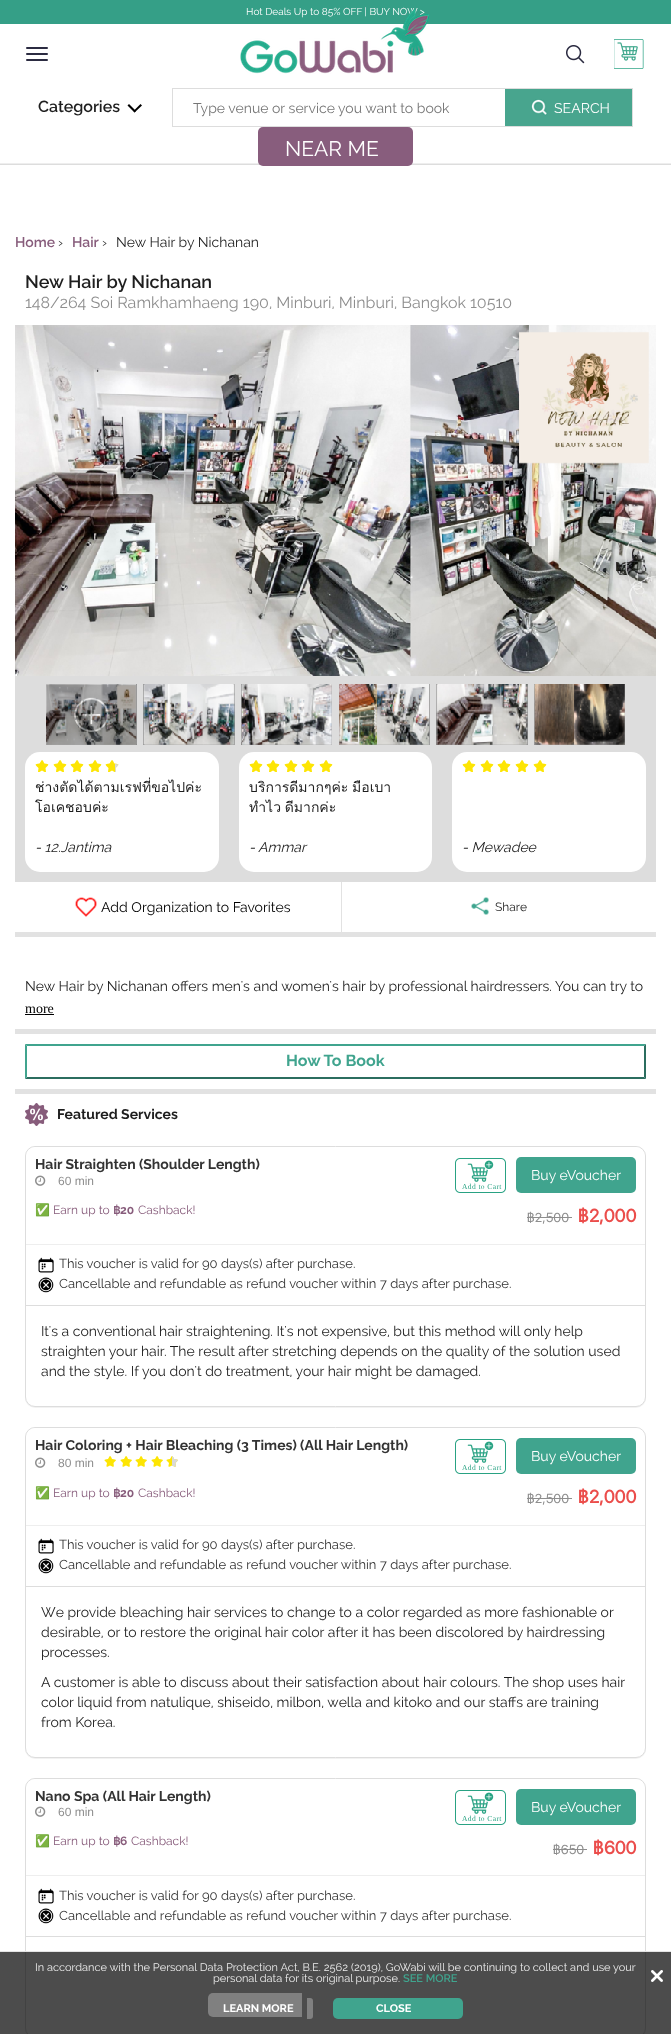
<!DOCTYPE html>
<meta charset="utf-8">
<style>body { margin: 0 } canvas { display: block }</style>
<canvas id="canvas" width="671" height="2034"></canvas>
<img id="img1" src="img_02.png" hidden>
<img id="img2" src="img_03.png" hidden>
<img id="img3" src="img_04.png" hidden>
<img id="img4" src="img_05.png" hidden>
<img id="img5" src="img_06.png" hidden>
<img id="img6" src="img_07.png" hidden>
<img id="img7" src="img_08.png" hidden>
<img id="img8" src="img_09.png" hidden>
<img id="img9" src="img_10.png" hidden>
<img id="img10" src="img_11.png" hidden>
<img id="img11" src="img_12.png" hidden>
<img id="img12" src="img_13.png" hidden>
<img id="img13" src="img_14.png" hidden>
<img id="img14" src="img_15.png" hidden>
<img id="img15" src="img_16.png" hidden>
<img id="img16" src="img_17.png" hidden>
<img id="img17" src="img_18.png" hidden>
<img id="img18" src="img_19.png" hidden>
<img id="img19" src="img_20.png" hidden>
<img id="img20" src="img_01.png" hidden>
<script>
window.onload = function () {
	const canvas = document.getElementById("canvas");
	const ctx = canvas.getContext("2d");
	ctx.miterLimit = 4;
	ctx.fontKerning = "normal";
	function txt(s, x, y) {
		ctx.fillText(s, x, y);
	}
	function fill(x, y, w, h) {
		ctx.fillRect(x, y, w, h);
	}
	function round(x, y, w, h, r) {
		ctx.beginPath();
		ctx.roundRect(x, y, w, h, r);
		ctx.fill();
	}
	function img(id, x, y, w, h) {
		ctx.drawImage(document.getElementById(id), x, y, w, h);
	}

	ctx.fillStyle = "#FFFFFF";
	fill(0, 0, 671, 2034);
	ctx.fillStyle = "#359F87";
	fill(0, 0, 671, 24);
	ctx.fillStyle = "#2B2B41";
	round(26, 47, 22, 2, 1);
	round(26, 53, 22, 2, 1);
	round(26, 59, 22, 2, 1);
	img("img1", 566, 45, 19, 19);
	img("img2", 614, 39, 30, 30);
	ctx.fillStyle = "#000000";
	ctx.beginPath();
	ctx.moveTo(140.5, 104);
	ctx.lineTo(142, 105.5);
	ctx.lineTo(134.5, 112.5);
	ctx.lineTo(133.5, 111);
	ctx.closePath();
	ctx.fill();
	ctx.beginPath();
	ctx.moveTo(129, 104);
	ctx.lineTo(136, 111);
	ctx.lineTo(134.5, 112.5);
	ctx.lineTo(127.5, 105.5);
	ctx.closePath();
	ctx.fill();
	ctx.strokeStyle = "#DDDDDD";
	ctx.strokeRect(172.5, 88.5, 460, 38);
	ctx.fillStyle = "#48A58E";
	fill(505, 89, 127, 37);
	img("img3", 531, 99, 17, 17);
	ctx.fillStyle = "#EEEEEE";
	fill(0, 163, 671, 1);
	ctx.fillStyle = "#DDDDDD";
	fill(0, 164, 671, 1);
	ctx.fillStyle = "#885D7D";
	round(258, 127, 155, 39, 5);
	img("img4", 15, 325, 641, 351);
	ctx.fillStyle = "#DDDDDD";
	fill(15, 676, 641, 206);
	ctx.strokeStyle = "#8E8E8E";
	ctx.lineWidth = 0.8;
	ctx.strokeRect(46.4, 684.4, 90.2, 60.2);
	img("img5", 46, 684, 91, 61);
	img("img6", 46, 684, 91, 61);
	ctx.strokeRect(143.4, 684.4, 91.2, 60.2);
	img("img7", 143, 684, 92, 61);
	ctx.strokeRect(241.4, 684.4, 90.2, 60.2);
	img("img8", 241, 684, 91, 61);
	ctx.strokeRect(339.4, 684.4, 90.2, 60.2);
	img("img9", 339, 684, 91, 61);
	ctx.strokeRect(436.4, 684.4, 91.2, 60.2);
	img("img10", 436, 684, 92, 61);
	ctx.strokeRect(534.4, 684.4, 90.2, 60.2);
	img("img11", 534, 684, 91, 61);
	ctx.fillStyle = "#FFFFFF";
	round(25, 752, 194, 120, 15);
	ctx.fillStyle = "#FDE503";
	ctx.beginPath();
	ctx.moveTo(41.5, 760.5);
	ctx.bezierCurveTo(42.5, 758.5, 44, 763.5, 44.5, 763.5);
	ctx.bezierCurveTo(49.5, 764.5, 49.5, 764, 45.5, 768);
	ctx.lineTo(46, 772);
	ctx.lineTo(44.5, 772);
	ctx.lineTo(42, 770.5);
	ctx.lineTo(39.5, 772);
	ctx.lineTo(38, 772);
	ctx.lineTo(38.5, 768);
	ctx.bezierCurveTo(34.5, 764, 34.5, 764.5, 39.5, 763.5);
	ctx.closePath();
	ctx.moveTo(59.5, 760.5);
	ctx.bezierCurveTo(60.5, 758.5, 62, 763.5, 62.5, 763.5);
	ctx.bezierCurveTo(67.5, 764.5, 67.5, 764, 63.5, 768);
	ctx.lineTo(64, 772);
	ctx.lineTo(62.5, 772);
	ctx.lineTo(60, 770.5);
	ctx.lineTo(57.5, 772);
	ctx.lineTo(56, 772);
	ctx.lineTo(56.5, 768);
	ctx.bezierCurveTo(52.5, 764, 52.5, 764.5, 57.5, 763.5);
	ctx.closePath();
	ctx.moveTo(76.5, 760.5);
	ctx.bezierCurveTo(77.5, 758.5, 79, 763.5, 79.5, 763.5);
	ctx.bezierCurveTo(84.5, 764.5, 84.5, 764, 80.5, 768);
	ctx.lineTo(81, 772);
	ctx.lineTo(79.5, 772);
	ctx.lineTo(77, 770.5);
	ctx.lineTo(74.5, 772);
	ctx.lineTo(73, 772);
	ctx.lineTo(73.5, 768);
	ctx.bezierCurveTo(69.5, 764, 69.5, 764.5, 74.5, 763.5);
	ctx.closePath();
	ctx.fill();
	ctx.beginPath();
	ctx.moveTo(94.5, 760.5);
	ctx.bezierCurveTo(95.5, 758.5, 97, 763.5, 97.5, 763.5);
	ctx.bezierCurveTo(102.5, 764.5, 102.5, 764, 98.5, 768);
	ctx.lineTo(99, 772);
	ctx.lineTo(97.5, 772);
	ctx.lineTo(95, 770.5);
	ctx.lineTo(92.5, 772);
	ctx.lineTo(91, 772);
	ctx.lineTo(91.5, 768);
	ctx.bezierCurveTo(87.5, 764, 87.5, 764.5, 92.5, 763.5);
	ctx.closePath();
	ctx.moveTo(111.5, 760.5);
	ctx.bezierCurveTo(112.5, 758.5, 114, 763.5, 114.5, 763.5);
	ctx.bezierCurveTo(119.5, 764.5, 119.5, 764, 115.5, 768);
	ctx.lineTo(116, 772);
	ctx.lineTo(114.5, 772);
	ctx.lineTo(112, 770.5);
	ctx.lineTo(109.5, 772);
	ctx.lineTo(108, 772);
	ctx.lineTo(108.5, 768);
	ctx.bezierCurveTo(104.5, 764, 104.5, 764.5, 109.5, 763.5);
	ctx.closePath();
	ctx.fill();
	ctx.fillStyle = "#D9D9D9";
	ctx.beginPath();
	ctx.moveTo(116, 772);
	ctx.lineTo(115, 772);
	ctx.lineTo(115, 764);
	ctx.bezierCurveTo(120, 764.5, 119, 764.5, 115.5, 768);
	ctx.closePath();
	ctx.fill();
	ctx.fillStyle = "#FFFFFF";
	round(239, 752, 193, 120, 15);
	ctx.fillStyle = "#FDE503";
	ctx.beginPath();
	ctx.moveTo(255.5, 760.5);
	ctx.bezierCurveTo(256.5, 758.5, 258, 763.5, 258.5, 763.5);
	ctx.bezierCurveTo(263.5, 764.5, 263.5, 764, 259.5, 768);
	ctx.lineTo(260, 772);
	ctx.lineTo(258.5, 772);
	ctx.lineTo(256, 770.5);
	ctx.lineTo(253.5, 772);
	ctx.lineTo(252, 772);
	ctx.lineTo(252.5, 768);
	ctx.bezierCurveTo(248.5, 764, 248.5, 764.5, 253.5, 763.5);
	ctx.closePath();
	ctx.moveTo(272.5, 760.5);
	ctx.bezierCurveTo(273.5, 758.5, 275, 763.5, 275.5, 763.5);
	ctx.bezierCurveTo(280.5, 764.5, 280.5, 764, 276.5, 768);
	ctx.lineTo(277, 772);
	ctx.lineTo(275.5, 772);
	ctx.lineTo(273, 770.5);
	ctx.lineTo(270.5, 772);
	ctx.lineTo(269, 772);
	ctx.lineTo(269.5, 768);
	ctx.bezierCurveTo(265.5, 764, 265.5, 764.5, 270.5, 763.5);
	ctx.closePath();
	ctx.moveTo(290.5, 760.5);
	ctx.bezierCurveTo(291.5, 758.5, 293, 763.5, 293.5, 763.5);
	ctx.bezierCurveTo(298.5, 764.5, 298.5, 764, 294.5, 768);
	ctx.lineTo(295, 772);
	ctx.lineTo(293.5, 772);
	ctx.lineTo(291, 770.5);
	ctx.lineTo(288.5, 772);
	ctx.lineTo(287, 772);
	ctx.lineTo(287.5, 768);
	ctx.bezierCurveTo(283.5, 764, 283.5, 764.5, 288.5, 763.5);
	ctx.closePath();
	ctx.fill();
	ctx.beginPath();
	ctx.moveTo(307.5, 760.5);
	ctx.bezierCurveTo(308.5, 758.5, 310, 763.5, 310.5, 763.5);
	ctx.bezierCurveTo(315.5, 764.5, 315.5, 764, 311.5, 768);
	ctx.lineTo(312, 772);
	ctx.lineTo(310.5, 772);
	ctx.lineTo(308, 770.5);
	ctx.lineTo(305.5, 772);
	ctx.lineTo(304, 772);
	ctx.lineTo(304.5, 768);
	ctx.bezierCurveTo(300.5, 764, 300.5, 764.5, 305.5, 763.5);
	ctx.closePath();
	ctx.moveTo(325.5, 760.5);
	ctx.bezierCurveTo(326.5, 758.5, 328, 763.5, 328.5, 763.5);
	ctx.bezierCurveTo(333.5, 764.5, 333.5, 764, 329.5, 768);
	ctx.lineTo(330, 772);
	ctx.lineTo(328.5, 772);
	ctx.lineTo(326, 770.5);
	ctx.lineTo(323.5, 772);
	ctx.lineTo(322, 772);
	ctx.lineTo(322.5, 768);
	ctx.bezierCurveTo(318.5, 764, 318.5, 764.5, 323.5, 763.5);
	ctx.closePath();
	ctx.fill();
	ctx.fillStyle = "#FFFFFF";
	round(452, 752, 194, 120, 15);
	ctx.fillStyle = "#FDE503";
	ctx.beginPath();
	ctx.moveTo(468.5, 760.5);
	ctx.bezierCurveTo(469.5, 758.5, 471, 763.5, 471.5, 763.5);
	ctx.bezierCurveTo(476.5, 764.5, 476.5, 764, 472.5, 768);
	ctx.lineTo(473, 772);
	ctx.lineTo(471.5, 772);
	ctx.lineTo(469, 770.5);
	ctx.lineTo(466.5, 772);
	ctx.lineTo(465, 772);
	ctx.lineTo(465.5, 768);
	ctx.bezierCurveTo(461.5, 764, 461.5, 764.5, 466.5, 763.5);
	ctx.closePath();
	ctx.moveTo(486.5, 760.5);
	ctx.bezierCurveTo(487.5, 758.5, 489, 763.5, 489.5, 763.5);
	ctx.bezierCurveTo(494.5, 764.5, 494.5, 764, 490.5, 768);
	ctx.lineTo(491, 772);
	ctx.lineTo(489.5, 772);
	ctx.lineTo(487, 770.5);
	ctx.lineTo(484.5, 772);
	ctx.lineTo(483, 772);
	ctx.lineTo(483.5, 768);
	ctx.bezierCurveTo(479.5, 764, 479.5, 764.5, 484.5, 763.5);
	ctx.closePath();
	ctx.moveTo(503.5, 760.5);
	ctx.bezierCurveTo(504.5, 758.5, 506, 763.5, 506.5, 763.5);
	ctx.bezierCurveTo(511.5, 764.5, 511.5, 764, 507.5, 768);
	ctx.lineTo(508, 772);
	ctx.lineTo(506.5, 772);
	ctx.lineTo(504, 770.5);
	ctx.lineTo(501.5, 772);
	ctx.lineTo(500, 772);
	ctx.lineTo(500.5, 768);
	ctx.bezierCurveTo(496.5, 764, 496.5, 764.5, 501.5, 763.5);
	ctx.closePath();
	ctx.fill();
	ctx.beginPath();
	ctx.moveTo(521.5, 760.5);
	ctx.bezierCurveTo(522.5, 758.5, 524, 763.5, 524.5, 763.5);
	ctx.bezierCurveTo(529.5, 764.5, 529.5, 764, 525.5, 768);
	ctx.lineTo(526, 772);
	ctx.lineTo(524.5, 772);
	ctx.lineTo(522, 770.5);
	ctx.lineTo(519.5, 772);
	ctx.lineTo(518, 772);
	ctx.lineTo(518.5, 768);
	ctx.bezierCurveTo(514.5, 764, 514.5, 764.5, 519.5, 763.5);
	ctx.closePath();
	ctx.moveTo(539.5, 760.5);
	ctx.bezierCurveTo(540.5, 758.5, 542, 763.5, 542.5, 763.5);
	ctx.bezierCurveTo(547.5, 764.5, 547.5, 764, 543.5, 768);
	ctx.lineTo(544, 772);
	ctx.lineTo(542.5, 772);
	ctx.lineTo(540, 770.5);
	ctx.lineTo(537.5, 772);
	ctx.lineTo(536, 772);
	ctx.lineTo(536.5, 768);
	ctx.bezierCurveTo(532.5, 764, 532.5, 764.5, 537.5, 763.5);
	ctx.closePath();
	ctx.fill();
	ctx.fillStyle = "#E2E2E2";
	fill(15, 932, 641, 5);
	fill(341, 882, 1, 50);
	img("img12", 75, 897, 22, 20);
	img("img13", 471, 897, 18, 18);
	fill(15, 1029, 641, 5);
	ctx.fillStyle = "#000000";
	fill(25, 1014, 29, 1);
	ctx.fillStyle = "#E2E2E2";
	fill(15, 1089, 641, 5);
	ctx.fillStyle = "#40A48E";
	ctx.beginPath();
	ctx.moveTo(25, 1044);
	ctx.lineTo(646, 1044);
	ctx.lineTo(644, 1046);
	ctx.lineTo(27, 1046);
	ctx.closePath();
	ctx.fill();
	ctx.fillStyle = "#2B6D5F";
	ctx.beginPath();
	ctx.moveTo(646, 1044);
	ctx.lineTo(646, 1079);
	ctx.lineTo(644, 1077);
	ctx.lineTo(644, 1046);
	ctx.closePath();
	ctx.fill();
	ctx.beginPath();
	ctx.moveTo(646, 1079);
	ctx.lineTo(25, 1079);
	ctx.lineTo(27, 1077);
	ctx.lineTo(644, 1077);
	ctx.closePath();
	ctx.fill();
	ctx.fillStyle = "#40A48E";
	ctx.beginPath();
	ctx.moveTo(25, 1079);
	ctx.lineTo(25, 1044);
	ctx.lineTo(27, 1046);
	ctx.lineTo(27, 1077);
	ctx.closePath();
	ctx.fill();
	img("img14", 25, 1103, 23, 23);
	ctx.fillStyle = "rgba(0, 0, 0, 0.05)";
	ctx.filter = "blur(0.5px)";
	ctx.beginPath();
	ctx.roundRect(25, 1147, 621, 261, 10);
	ctx.fill();
	ctx.filter = "none";
	ctx.fillStyle = "#FFFFFF";
	ctx.beginPath();
	ctx.roundRect(25.5, 1146.5, 620, 260, 9.5);
	ctx.fill();
	ctx.strokeStyle = "#DDDDDD";
	ctx.lineWidth = 1;
	ctx.stroke();
	round(26, 1147, 619, 158, 10);
	img("img15", 35, 1175, 11, 11);
	ctx.fillStyle = "#40A48E";
	round(516, 1157, 120, 36, 5);
	img("img16", 455, 1158, 51, 35);
	ctx.fillStyle = "#8E8E8E";
	fill(527, 1217, 45, 1);
	ctx.fillStyle = "#EEEEEE";
	fill(26, 1244, 619, 1);
	img("img17", 38, 1257, 16, 16);
	img("img18", 38, 1277, 16, 16);
	ctx.fillStyle = "#DDDDDD";
	fill(26, 1305, 619, 1);
	ctx.fillStyle = "rgba(0, 0, 0, 0.05)";
	ctx.filter = "blur(0.5px)";
	ctx.beginPath();
	ctx.roundRect(25, 1428, 621, 331, 10);
	ctx.fill();
	ctx.filter = "none";
	ctx.fillStyle = "#FFFFFF";
	ctx.beginPath();
	ctx.roundRect(25.5, 1427.5, 620, 330, 9.5);
	ctx.fill();
	ctx.stroke();
	round(26, 1428, 619, 158, 10);
	img("img15", 35, 1457, 11, 11);
	ctx.fillStyle = "#FDE503";
	ctx.beginPath();
	ctx.moveTo(109.5, 1456.5);
	ctx.bezierCurveTo(110.5, 1454.5, 112, 1459, 112, 1459);
	ctx.bezierCurveTo(117, 1460, 117, 1459.5, 113.5, 1463);
	ctx.bezierCurveTo(114, 1467.5, 114.5, 1467.5, 110, 1465.5);
	ctx.bezierCurveTo(106, 1467.5, 106, 1467.5, 107, 1463);
	ctx.bezierCurveTo(103.5, 1459.5, 103.5, 1460, 108, 1459);
	ctx.closePath();
	ctx.moveTo(125.5, 1456.5);
	ctx.bezierCurveTo(126.5, 1454.5, 128, 1459, 128, 1459);
	ctx.bezierCurveTo(133, 1460, 133, 1459.5, 129.5, 1463);
	ctx.bezierCurveTo(130, 1467.5, 130.5, 1467.5, 126, 1465.5);
	ctx.bezierCurveTo(122, 1467.5, 122, 1467.5, 123, 1463);
	ctx.bezierCurveTo(119.5, 1459.5, 119.5, 1460, 124, 1459);
	ctx.closePath();
	ctx.moveTo(140.5, 1456.5);
	ctx.bezierCurveTo(141.5, 1454.5, 143, 1459, 143, 1459);
	ctx.bezierCurveTo(148, 1460, 148, 1459.5, 144.5, 1463);
	ctx.bezierCurveTo(145, 1467.5, 145.5, 1467.5, 141, 1465.5);
	ctx.bezierCurveTo(137, 1467.5, 137, 1467.5, 138, 1463);
	ctx.bezierCurveTo(134.5, 1459.5, 134.5, 1460, 139, 1459);
	ctx.closePath();
	ctx.moveTo(156.5, 1456.5);
	ctx.bezierCurveTo(157.5, 1454.5, 159, 1459, 159, 1459);
	ctx.bezierCurveTo(164, 1460, 164, 1459.5, 160.5, 1463);
	ctx.bezierCurveTo(161, 1467.5, 161.5, 1467.5, 157, 1465.5);
	ctx.bezierCurveTo(153, 1467.5, 153, 1467.5, 154, 1463);
	ctx.bezierCurveTo(150.5, 1459.5, 150.5, 1460, 155, 1459);
	ctx.closePath();
	ctx.fill();
	ctx.beginPath();
	ctx.moveTo(171.5, 1456.5);
	ctx.bezierCurveTo(172.5, 1454.5, 174, 1459, 174, 1459);
	ctx.bezierCurveTo(179, 1460, 179, 1459.5, 175.5, 1463);
	ctx.bezierCurveTo(176, 1467.5, 176.5, 1467.5, 172, 1465.5);
	ctx.bezierCurveTo(168, 1467.5, 168, 1467.5, 169, 1463);
	ctx.bezierCurveTo(165.5, 1459.5, 165.5, 1460, 170, 1459);
	ctx.closePath();
	ctx.fill();
	ctx.fillStyle = "#D9D9D9";
	ctx.beginPath();
	ctx.moveTo(172, 1465.5);
	ctx.lineTo(172, 1456);
	ctx.bezierCurveTo(173, 1456, 174, 1458.5, 174, 1459);
	ctx.bezierCurveTo(179, 1460, 179, 1459.5, 175.5, 1463);
	ctx.bezierCurveTo(176, 1467.5, 176.5, 1467.5, 172, 1465.5);
	ctx.closePath();
	ctx.fill();
	ctx.fillStyle = "#40A48E";
	round(516, 1438, 120, 36, 5);
	img("img16", 455, 1439, 51, 35);
	ctx.fillStyle = "#8E8E8E";
	fill(527, 1498, 45, 1);
	ctx.fillStyle = "#EEEEEE";
	fill(26, 1525, 619, 1);
	img("img17", 38, 1538, 16, 16);
	img("img18", 38, 1558, 16, 16);
	ctx.fillStyle = "#DDDDDD";
	fill(26, 1586, 619, 1);
	ctx.fillStyle = "rgba(0, 0, 0, 0.05)";
	ctx.filter = "blur(0.5px)";
	ctx.beginPath();
	ctx.roundRect(25, 1779, 621, 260, 10);
	ctx.fill();
	ctx.filter = "none";
	ctx.fillStyle = "#FFFFFF";
	ctx.beginPath();
	ctx.roundRect(25.5, 1778.5, 620, 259, 9.5);
	ctx.fill();
	ctx.stroke();
	round(26, 1779, 619, 157, 10);
	img("img15", 35, 1806, 11, 11);
	ctx.fillStyle = "#40A48E";
	round(516, 1789, 120, 36, 5);
	img("img16", 455, 1790, 51, 35);
	ctx.fillStyle = "#8E8E8E";
	fill(553, 1849, 34, 1);
	ctx.fillStyle = "#EEEEEE";
	fill(26, 1875, 619, 1);
	img("img17", 38, 1888, 16, 16);
	img("img18", 38, 1908, 16, 16);
	ctx.fillStyle = "#DDDDDD";
	fill(26, 1936, 619, 1);
	ctx.fillStyle = "rgba(0, 0, 0, 0.7)";
	fill(0, 1952, 671, 82);
	ctx.fillStyle = "#E4E4E4";
	fill(0, 1951, 671, 1);
	img("img19", 651, 1970, 12, 12);
	ctx.fillStyle = "#808080";
	ctx.beginPath();
	ctx.roundRect(208, 1993, 94, 24, [5, 0, 0, 5]);
	ctx.fill();
	ctx.beginPath();
	ctx.roundRect(307, 1998, 6, 21, [0, 3, 3, 0]);
	ctx.fill();
	ctx.fillStyle = "#40A48E";
	round(333, 1998, 130, 21, 5);
	ctx.font = "10px Raleway";
	ctx.fillStyle = "#FFFFFF";
	txt("Hot Deals Up to 85% OFF | BUY NOW >", 246, 15);
	img("img20", 240, 9, 190, 65);
	ctx.font = "600 16px Raleway";
	ctx.fillStyle = "#1E1E1E";
	txt("Categories", 38, 112);
	ctx.font = "14px Raleway";
	ctx.fillStyle = "#757575";
	txt("Type venue or service you want to book", 193, 113);
	ctx.fillStyle = "#FFFFFF";
	txt("SEARCH", 554, 113);
	ctx.font = "21px Raleway";
	txt("NEAR ME", 285, 156);
	ctx.font = "600 14px Raleway";
	ctx.fillStyle = "#875C7B";
	txt("Home", 15, 247);
	ctx.font = "14px Raleway";
	ctx.fillStyle = "#1E1E1E";
	txt("›", 58, 247);
	ctx.font = "600 14px Raleway";
	ctx.fillStyle = "#875C7B";
	txt("Hair", 72, 247);
	ctx.font = "14px Raleway";
	ctx.fillStyle = "#1E1E1E";
	txt("›", 102, 247);
	txt("New Hair by Nichanan", 116, 247);
	ctx.font = "600 18px Raleway";
	txt("New Hair by Nichanan", 25, 288);
	ctx.font = "16px Raleway";
	ctx.fillStyle = "#8E8E8E";
	txt("148/264 Soi Ramkhamhaeng 190, Minburi, Minburi, Bangkok 10510", 25, 308);
	ctx.font = "14px Loma";
	ctx.fillStyle = "#1E1E1E";
	txt("ช่างตัดได้ตามเรฟที่ขอไปค่ะ", 35, 792);
	txt("โอเคชอบค่ะ", 35, 812);
	ctx.font = "italic 14px Raleway";
	txt("- 12.Jantima", 35, 852);
	ctx.wordSpacing = "-1px";
	ctx.font = "14px Loma";
	txt("บริการดีมากๆค่ะ มือเบา", 249, 792);
	txt("ทำไว ดีมากค่ะ", 249, 812);
	ctx.wordSpacing = "0px";
	ctx.font = "italic 14px Raleway";
	txt("- Ammar", 249, 852);
	txt("- Mewadee", 462, 852);
	ctx.font = "14px Raleway";
	ctx.fillStyle = "#000000";
	txt("Add Organization to Favorites", 101, 912);
	ctx.font = "12px Raleway";
	ctx.fillStyle = "#1E1E1E";
	txt("Share", 495, 911);
	ctx.font = "14px Raleway";
	txt("New Hair by Nichanan offers men's and women's hair by professional hairdressers. You can try to", 25, 991);
	ctx.font = "14px Liberation Serif";
	ctx.fillStyle = "#000000";
	txt("more", 25, 1013);
	ctx.font = "bold 16px Raleway";
	ctx.fillStyle = "#40A48E";
	txt("How To Book", 286, 1066);
	ctx.font = "bold 14px Raleway";
	ctx.fillStyle = "#1E1E1E";
	txt("Featured Services", 57, 1119);
	ctx.fillStyle = "#333333";
	txt("Hair Straighten (Shoulder Length)", 35, 1169);
	ctx.font = "12px Liberation Sans";
	ctx.fillStyle = "#8E8E8E";
	txt("60 min", 58, 1185);
	ctx.font = "12px Noto Color Emoji";
	ctx.fillStyle = "#875C7B";
	txt("✅", 35, 1214);
	ctx.font = "12px Raleway";
	txt("Earn up to", 53, 1214);
	ctx.font = "bold 12px DejaVu Sans";
	txt("฿", 113, 1214);
	ctx.font = "bold 12px Raleway";
	txt("20", 120, 1214);
	ctx.font = "12px Raleway";
	txt("Cashback!", 138, 1214);
	ctx.font = "14px Raleway";
	ctx.fillStyle = "#FFFFFF";
	txt("Buy eVoucher", 531, 1180);
	ctx.letterSpacing = "0.4px";
	ctx.font = "7.5px Liberation Serif";
	ctx.fillStyle = "#29A283";
	txt("Add to Cart", 462, 1189);
	ctx.letterSpacing = "0px";
	ctx.font = "13px SF Pro Display";
	ctx.fillStyle = "#8E8E8E";
	txt("฿2,500", 527, 1222);
	ctx.font = "bold 18px SF Pro Display";
	ctx.fillStyle = "#EB4D4B";
	txt("฿2,000", 578, 1222);
	ctx.font = "13px Raleway";
	ctx.fillStyle = "#333333";
	txt("This voucher is valid for 90 days(s) after purchase.", 59, 1268);
	txt("Cancellable and refundable as refund voucher within 7 days after purchase.", 59, 1288);
	ctx.font = "14px Raleway";
	ctx.fillStyle = "#1E1E1E";
	txt("It's a conventional hair straightening. It's not expensive, but this method will only help", 41, 1336);
	txt("straighten your hair. The result after stretching depends on the quality of the solution used", 41, 1356);
	txt("and the style. If you don't do treatment, your hair might be damaged.", 41, 1376);
	ctx.font = "bold 14px Raleway";
	ctx.fillStyle = "#333333";
	txt("Hair Coloring + Hair Bleaching (3 Times) (All Hair Length)", 35, 1450);
	ctx.font = "12px Liberation Sans";
	ctx.fillStyle = "#8E8E8E";
	txt("80 min", 58, 1467);
	ctx.font = "12px Noto Color Emoji";
	ctx.fillStyle = "#875C7B";
	txt("✅", 35, 1497);
	ctx.font = "12px Raleway";
	txt("Earn up to", 53, 1497);
	ctx.font = "bold 12px DejaVu Sans";
	txt("฿", 113, 1497);
	ctx.font = "bold 12px Raleway";
	txt("20", 120, 1497);
	ctx.font = "12px Raleway";
	txt("Cashback!", 138, 1497);
	ctx.font = "14px Raleway";
	ctx.fillStyle = "#FFFFFF";
	txt("Buy eVoucher", 531, 1461);
	ctx.letterSpacing = "0.4px";
	ctx.font = "7.5px Liberation Serif";
	ctx.fillStyle = "#29A283";
	txt("Add to Cart", 462, 1470);
	ctx.letterSpacing = "0px";
	ctx.font = "13px SF Pro Display";
	ctx.fillStyle = "#8E8E8E";
	txt("฿2,500", 527, 1503);
	ctx.font = "bold 18px SF Pro Display";
	ctx.fillStyle = "#EB4D4B";
	txt("฿2,000", 578, 1503);
	ctx.font = "13px Raleway";
	ctx.fillStyle = "#333333";
	txt("This voucher is valid for 90 days(s) after purchase.", 59, 1549);
	txt("Cancellable and refundable as refund voucher within 7 days after purchase.", 59, 1569);
	ctx.font = "14px Raleway";
	ctx.fillStyle = "#1E1E1E";
	txt("We provide bleaching hair services to change to a color regarded as more fashionable or", 41, 1617);
	txt("desirable, or to restore the original hair color after it has been discolored by hairdressing", 41, 1637);
	txt("processes.", 41, 1657);
	txt("A customer is able to discuss about their satisfaction about hair colours. The shop uses hair", 41, 1687);
	txt("color liquid from natulique, shiseido, milbon, wella and kitoko and our staffs are training", 41, 1707);
	txt("from Korea.", 41, 1727);
	ctx.font = "bold 14px Raleway";
	ctx.fillStyle = "#333333";
	txt("Nano Spa (All Hair Length)", 35, 1801);
	ctx.font = "12px Liberation Sans";
	ctx.fillStyle = "#8E8E8E";
	txt("60 min", 58, 1816);
	ctx.font = "12px Noto Color Emoji";
	ctx.fillStyle = "#875C7B";
	txt("✅", 35, 1845);
	ctx.font = "12px Raleway";
	txt("Earn up to", 53, 1845);
	ctx.font = "bold 12px DejaVu Sans";
	txt("฿", 113, 1845);
	ctx.font = "bold 12px Raleway";
	txt("6", 120, 1845);
	ctx.font = "12px Raleway";
	txt("Cashback!", 131, 1845);
	ctx.font = "14px Raleway";
	ctx.fillStyle = "#FFFFFF";
	txt("Buy eVoucher", 531, 1812);
	ctx.letterSpacing = "0.4px";
	ctx.font = "7.5px Liberation Serif";
	ctx.fillStyle = "#29A283";
	txt("Add to Cart", 462, 1821);
	ctx.letterSpacing = "0px";
	ctx.font = "13px SF Pro Display";
	ctx.fillStyle = "#8E8E8E";
	txt("฿650", 553, 1854);
	ctx.font = "bold 18px SF Pro Display";
	ctx.fillStyle = "#EB4D4B";
	txt("฿600", 593, 1854);
	ctx.font = "13px Raleway";
	ctx.fillStyle = "#333333";
	txt("This voucher is valid for 90 days(s) after purchase.", 59, 1900);
	txt("Cancellable and refundable as refund voucher within 7 days after purchase.", 59, 1920);
	ctx.font = "11px Raleway";
	ctx.fillStyle = "#ECECEC";
	txt("In accordance with the Personal Data Protection Act, B.E. 2562 (2019), GoWabi will be continuing to collect and use your", 35, 1971);
	txt("personal data for its original purpose.", 213, 1982);
	ctx.font = "600 11px Raleway";
	ctx.fillStyle = "#40A48E";
	txt("SEE MORE", 403, 1982);
	ctx.font = "bold 11px Raleway";
	ctx.fillStyle = "#FFFFFF";
	txt("LEARN MORE", 223, 2012);
	txt("CLOSE", 376, 2012);
};
</script>
